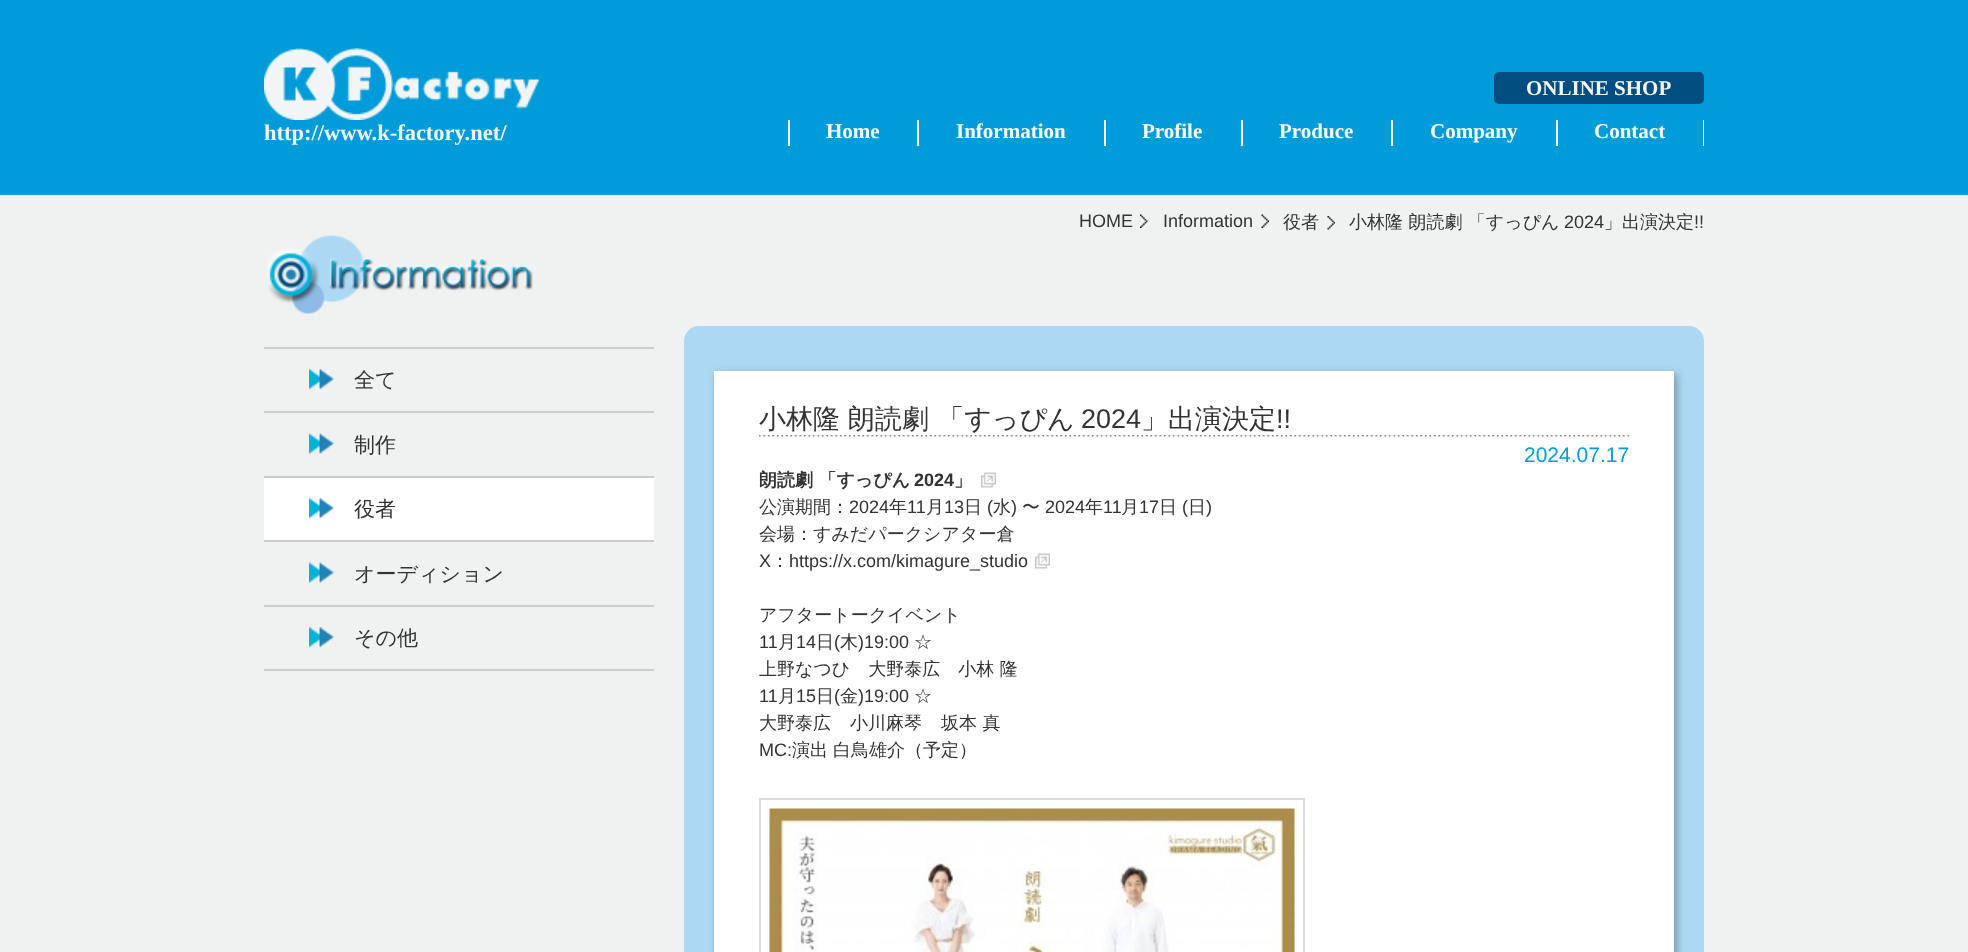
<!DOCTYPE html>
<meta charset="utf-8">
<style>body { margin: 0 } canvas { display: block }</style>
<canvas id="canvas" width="1968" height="952"></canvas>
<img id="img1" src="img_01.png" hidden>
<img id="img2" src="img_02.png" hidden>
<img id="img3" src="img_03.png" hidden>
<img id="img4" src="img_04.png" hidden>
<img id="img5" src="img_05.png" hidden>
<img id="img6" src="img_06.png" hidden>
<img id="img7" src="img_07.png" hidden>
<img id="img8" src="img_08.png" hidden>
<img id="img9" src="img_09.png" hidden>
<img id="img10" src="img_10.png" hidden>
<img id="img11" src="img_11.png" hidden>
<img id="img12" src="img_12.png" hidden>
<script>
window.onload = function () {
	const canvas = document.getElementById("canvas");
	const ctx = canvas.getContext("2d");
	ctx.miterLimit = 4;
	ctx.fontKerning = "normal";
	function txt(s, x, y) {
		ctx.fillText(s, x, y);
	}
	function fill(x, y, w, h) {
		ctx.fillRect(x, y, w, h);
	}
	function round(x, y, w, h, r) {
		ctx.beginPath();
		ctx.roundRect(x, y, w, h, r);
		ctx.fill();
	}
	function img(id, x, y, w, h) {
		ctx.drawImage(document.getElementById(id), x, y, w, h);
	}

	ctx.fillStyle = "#F0F2F2";
	fill(0, 0, 1968, 952);
	ctx.fillStyle = "#009BD9";
	fill(0, 0, 1968, 195);
	ctx.fillStyle = "#004D7E";
	round(1494, 72, 210, 32, 5);
	img("img1", 264, 48, 276, 72);
	ctx.fillStyle = "#FFFFFF";
	fill(788, 120, 2, 26);
	fill(917, 120, 2, 26);
	fill(1104, 120, 2, 26);
	fill(1241, 120, 2, 26);
	fill(1391, 120, 2, 26);
	fill(1703, 120, 1, 26);
	fill(1556, 120, 2, 26);
	img("img2", 1140, 214, 8, 14);
	img("img3", 1261, 214, 8, 14);
	img("img4", 1327, 216, 8, 14);
	img("img5", 267, 235, 266, 79);
	ctx.fillStyle = "#CCCCCC";
	fill(264, 347, 390, 2);
	img("img6", 309, 369, 26, 21);
	fill(264, 411, 390, 2);
	img("img7", 309, 433, 26, 22);
	ctx.fillStyle = "#FFFFFF";
	fill(264, 478, 390, 62);
	ctx.fillStyle = "#CCCCCC";
	fill(264, 476, 390, 2);
	img("img8", 309, 498, 26, 21);
	fill(264, 540, 390, 2);
	img("img7", 309, 562, 26, 22);
	fill(264, 605, 390, 2);
	fill(264, 669, 390, 2);
	img("img6", 309, 627, 26, 21);
	ctx.fillStyle = "#ADD8F3";
	round(684, 326, 1020, 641, 15);
	ctx.fillStyle = "#7997AA";
	ctx.filter = "blur(4px)";
	ctx.beginPath();
	ctx.rect(717, 374, 960, 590);
	ctx.fill();
	ctx.filter = "none";
	ctx.fillStyle = "#FFFFFF";
	fill(714, 371, 960, 581);
	img("img9", 759, 435, 870, 2);
	img("img10", 981, 472, 15, 16);
	img("img11", 1035, 553, 15, 16);
	ctx.strokeStyle = "#DDDDDD";
	ctx.lineWidth = 2;
	ctx.strokeRect(760, 799, 544, 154);
	img("img12", 769, 808, 526, 144);
	ctx.font = "bold 21px Liberation Serif";
	ctx.fillStyle = "#F1F5F6";
	txt("ONLINE SHOP", 1526, 95);
	ctx.font = "bold 22.5px Liberation Serif";
	txt("http://www.k-factory.net/", 264, 140);
	ctx.font = "bold 21px Liberation Serif";
	ctx.fillStyle = "#FFFFFF";
	txt("Home", 826, 138);
	txt("Information", 956, 138);
	txt("Profile", 1142, 138);
	txt("Produce", 1279, 138);
	txt("Company", 1430, 138);
	txt("Contact", 1594, 138);
	ctx.font = "18px Liberation Sans";
	ctx.fillStyle = "#333333";
	txt("HOME", 1079, 227);
	txt("Information", 1163, 227);
	ctx.font = "500 18px WenQuanYi Zen Hei";
	txt("役者", 1283, 228);
	txt("小林隆 朗読劇 「すっぴん", 1349, 228);
	ctx.font = "18px Liberation Sans";
	txt("2024", 1564, 228);
	ctx.font = "500 18px WenQuanYi Zen Hei";
	txt("」出演決定", 1604, 228);
	ctx.font = "18px Liberation Sans";
	txt("!!", 1694, 228);
	ctx.font = "500 21px WenQuanYi Zen Hei";
	txt("全て", 354, 387);
	txt("制作", 354, 452);
	txt("役者", 354, 516);
	txt("オーディション", 354, 581);
	txt("その他", 354, 645);
	ctx.font = "500 27px WenQuanYi Zen Hei";
	txt("小林隆 朗読劇 「すっぴん", 759, 428);
	ctx.font = "27px Liberation Sans";
	txt("2024", 1081, 428);
	ctx.font = "500 27px WenQuanYi Zen Hei";
	txt("」出演決定", 1141, 428);
	ctx.font = "27px Liberation Sans";
	txt("!!", 1276, 428);
	ctx.font = "21px Liberation Sans";
	ctx.fillStyle = "#009BD9";
	txt("2024.07.17", 1524, 462);
	ctx.font = "bold 18px WenQuanYi Zen Hei";
	ctx.fillStyle = "#333333";
	txt("朗読劇 「すっぴん", 759, 486);
	ctx.font = "bold 18px Liberation Sans";
	txt("2024", 914, 486);
	ctx.font = "bold 18px WenQuanYi Zen Hei";
	txt("」", 954, 486);
	ctx.font = "500 18px WenQuanYi Zen Hei";
	txt("公演期間：", 759, 513);
	ctx.font = "18px Liberation Sans";
	txt("2024", 849, 513);
	ctx.font = "500 18px WenQuanYi Zen Hei";
	txt("年", 889, 513);
	ctx.font = "18px Liberation Sans";
	txt("11", 907, 513);
	ctx.font = "500 18px WenQuanYi Zen Hei";
	txt("月", 926, 513);
	ctx.font = "18px Liberation Sans";
	txt("13", 944, 513);
	ctx.font = "500 18px WenQuanYi Zen Hei";
	txt("日", 964, 513);
	ctx.font = "18px Liberation Sans";
	txt("(", 987, 513);
	ctx.font = "500 18px WenQuanYi Zen Hei";
	txt("水", 993, 513);
	ctx.font = "18px Liberation Sans";
	txt(")", 1011, 513);
	ctx.font = "500 18px WenQuanYi Zen Hei";
	txt("〜", 1022, 513);
	ctx.font = "18px Liberation Sans";
	txt("2024", 1045, 513);
	ctx.font = "500 18px WenQuanYi Zen Hei";
	txt("年", 1085, 513);
	ctx.font = "18px Liberation Sans";
	txt("11", 1103, 513);
	ctx.font = "500 18px WenQuanYi Zen Hei";
	txt("月", 1121, 513);
	ctx.font = "18px Liberation Sans";
	txt("17", 1139, 513);
	ctx.font = "500 18px WenQuanYi Zen Hei";
	txt("日", 1159, 513);
	ctx.font = "18px Liberation Sans";
	txt("(", 1182, 513);
	ctx.font = "500 18px WenQuanYi Zen Hei";
	txt("日", 1188, 513);
	ctx.font = "18px Liberation Sans";
	txt(")", 1206, 513);
	ctx.font = "500 18px WenQuanYi Zen Hei";
	txt("会場：すみだパークシアター倉", 759, 540);
	ctx.font = "18px Liberation Sans";
	txt("X", 759, 567);
	ctx.font = "500 18px WenQuanYi Zen Hei";
	txt("：", 771, 567);
	ctx.font = "18px Liberation Sans";
	txt("https://x.com/kimagure_studio", 789, 567);
	ctx.font = "500 18px WenQuanYi Zen Hei";
	txt("アフタートークイベント", 759, 621);
	ctx.font = "18px Liberation Sans";
	txt("11", 759, 648);
	ctx.font = "500 18px WenQuanYi Zen Hei";
	txt("月", 778, 648);
	ctx.font = "18px Liberation Sans";
	txt("14", 796, 648);
	ctx.font = "500 18px WenQuanYi Zen Hei";
	txt("日", 816, 648);
	ctx.font = "18px Liberation Sans";
	txt("(", 834, 648);
	ctx.font = "500 18px WenQuanYi Zen Hei";
	txt("木", 840, 648);
	ctx.font = "18px Liberation Sans";
	txt(")19:00", 858, 648);
	ctx.font = "500 18px WenQuanYi Zen Hei";
	txt("☆", 914, 648);
	txt("上野なつひ　大野泰広　小林 隆", 759, 675);
	ctx.font = "18px Liberation Sans";
	txt("11", 759, 702);
	ctx.font = "500 18px WenQuanYi Zen Hei";
	txt("月", 778, 702);
	ctx.font = "18px Liberation Sans";
	txt("15", 796, 702);
	ctx.font = "500 18px WenQuanYi Zen Hei";
	txt("日", 816, 702);
	ctx.font = "18px Liberation Sans";
	txt("(", 834, 702);
	ctx.font = "500 18px WenQuanYi Zen Hei";
	txt("金", 840, 702);
	ctx.font = "18px Liberation Sans";
	txt(")19:00", 858, 702);
	ctx.font = "500 18px WenQuanYi Zen Hei";
	txt("☆", 914, 702);
	txt("⼤野泰広", 759, 729);
	txt("小川麻琴", 850, 729);
	txt("坂本 真", 941, 729);
	ctx.font = "18px Liberation Sans";
	txt("MC:", 759, 756);
	ctx.font = "500 18px WenQuanYi Zen Hei";
	txt("演出", 792, 756);
	txt("白鳥雄介（予定）", 833, 756);
};
</script>
